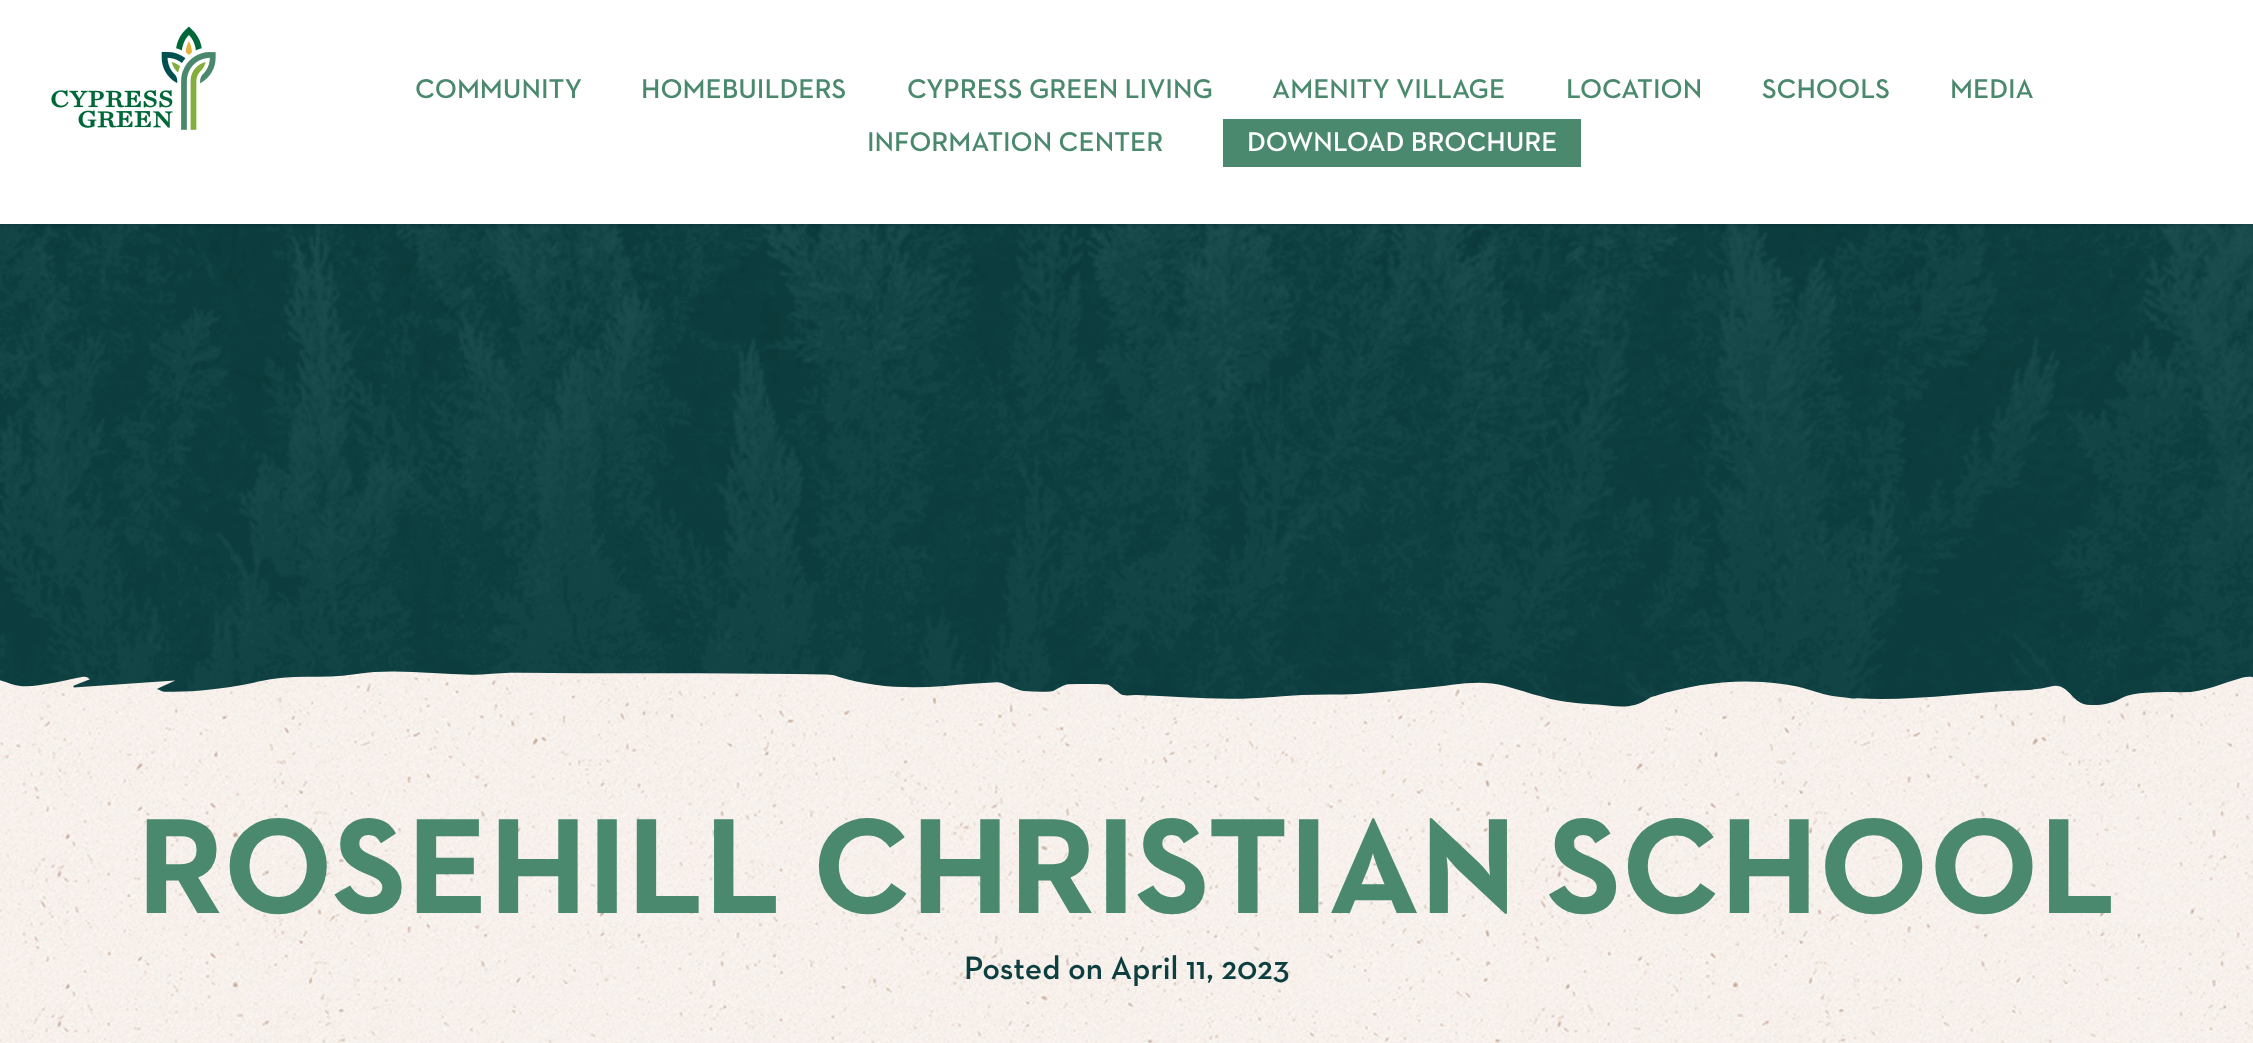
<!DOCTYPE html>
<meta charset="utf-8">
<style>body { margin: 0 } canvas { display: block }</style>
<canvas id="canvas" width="2253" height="1043"></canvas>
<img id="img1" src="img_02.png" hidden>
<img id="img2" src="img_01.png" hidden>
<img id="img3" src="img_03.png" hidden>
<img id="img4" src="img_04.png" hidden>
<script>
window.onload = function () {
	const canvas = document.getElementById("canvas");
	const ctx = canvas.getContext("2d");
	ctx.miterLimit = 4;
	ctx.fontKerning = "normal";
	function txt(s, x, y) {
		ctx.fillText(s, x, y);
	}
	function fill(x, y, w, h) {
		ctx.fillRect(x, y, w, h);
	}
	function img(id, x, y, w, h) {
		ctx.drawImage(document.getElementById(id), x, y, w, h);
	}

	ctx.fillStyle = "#FFFFFF";
	fill(0, 0, 2253, 1043);
	img("img1", 0, 224, 2253, 483);
	ctx.fillStyle = "rgba(0, 0, 0, 0.1)";
	ctx.filter = "blur(1.5px)";
	ctx.beginPath();
	ctx.rect(2, 3, 2250, 221);
	ctx.fill();
	ctx.filter = "none";
	ctx.filter = "blur(2px)";
	ctx.beginPath();
	ctx.rect(0, 2, 2253, 223);
	ctx.fill();
	ctx.filter = "none";
	ctx.fillStyle = "#FFFFFF";
	fill(0, 0, 2253, 224);
	img("img2", 51, 26, 165, 104);
	ctx.fillStyle = "#4A896E";
	fill(1223, 119, 358, 48);
	img("img3", 0, 922, 2253, 121);
	img("img4", 0, 671, 2253, 252);
	ctx.font = "600 27.6px 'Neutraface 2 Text'";
	txt("COMMUNITY", 415, 98);
	txt("HOMEBUILDERS", 641, 98);
	txt("CYPRESS GREEN LIVING", 907, 98);
	txt("AMENITY VILLAGE", 1272, 98);
	txt("LOCATION", 1566, 98);
	txt("SCHOOLS", 1762, 98);
	txt("MEDIA", 1950, 98);
	txt("INFORMATION CENTER", 867, 151);
	ctx.fillStyle = "#FFFFFF";
	txt("DOWNLOAD BROCHURE", 1247, 151);
	ctx.font = "bold 138px 'Neutraface 2 Text'";
	ctx.fillStyle = "#4A896E";
	txt("ROSEHILL CHRISTIAN SCHOOL", 137, 913);
	ctx.font = "600 33px 'Neutraface 2 Text'";
	ctx.fillStyle = "#0D3E40";
	txt("Posted on April 11, 2023", 964, 979);
};
</script>
